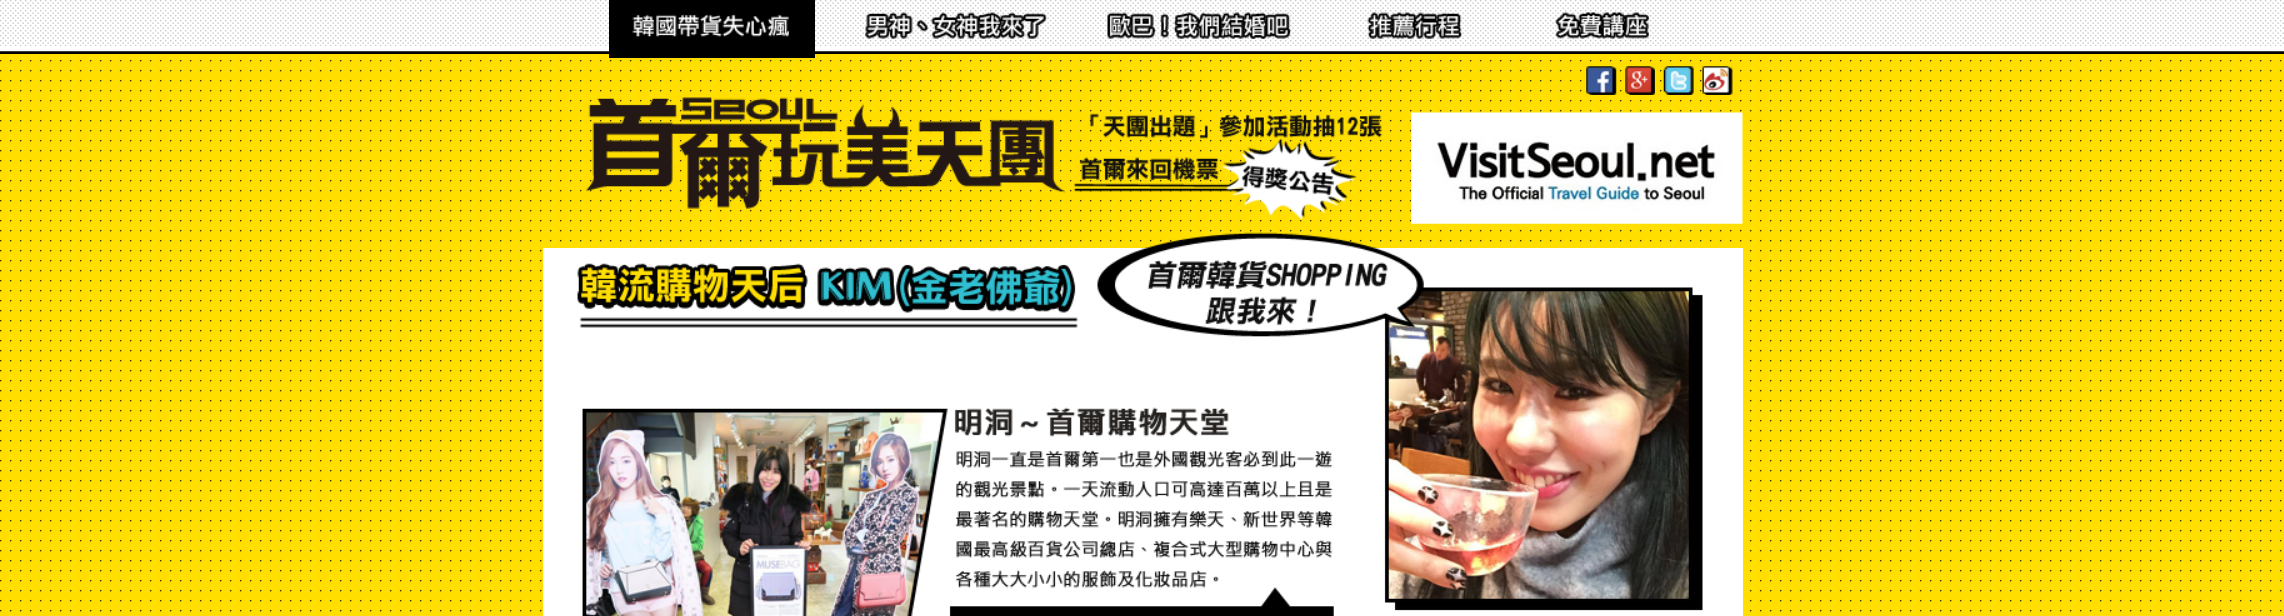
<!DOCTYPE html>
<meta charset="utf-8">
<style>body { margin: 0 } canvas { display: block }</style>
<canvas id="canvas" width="2284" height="616"></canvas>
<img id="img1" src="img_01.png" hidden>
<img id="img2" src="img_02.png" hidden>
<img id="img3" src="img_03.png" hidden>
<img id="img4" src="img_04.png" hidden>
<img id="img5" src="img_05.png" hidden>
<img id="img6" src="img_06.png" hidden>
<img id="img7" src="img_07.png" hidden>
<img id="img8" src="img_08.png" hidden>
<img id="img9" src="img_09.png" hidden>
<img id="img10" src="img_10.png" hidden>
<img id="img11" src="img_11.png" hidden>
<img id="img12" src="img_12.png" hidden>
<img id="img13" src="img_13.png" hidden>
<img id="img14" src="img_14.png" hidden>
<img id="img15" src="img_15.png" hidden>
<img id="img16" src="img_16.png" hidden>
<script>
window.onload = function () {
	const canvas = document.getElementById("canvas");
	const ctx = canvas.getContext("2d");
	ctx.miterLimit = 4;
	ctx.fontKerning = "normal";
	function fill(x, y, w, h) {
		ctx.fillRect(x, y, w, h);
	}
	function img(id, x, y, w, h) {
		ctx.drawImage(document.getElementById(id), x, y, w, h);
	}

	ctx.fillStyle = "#FFDE00";
	fill(0, 0, 2284, 616);
	img("img1", 0, 59, 2282, 553);
	ctx.fillStyle = "#000000";
	fill(0, 51, 2284, 3);
	img("img2", 0, 0, 2284, 52);
	ctx.fillStyle = "#FFFFFF";
	fill(0, 46, 2284, 5);
	ctx.fillStyle = "#000000";
	fill(609, 0, 206, 58);
	img("img3", 632, 14, 158, 23);
	img("img4", 865, 12, 182, 27);
	img("img5", 1107, 12, 185, 27);
	img("img6", 1367, 12, 95, 27);
	img("img7", 1555, 12, 94, 27);
	img("img8", 1586, 66, 31, 29);
	img("img9", 1625, 66, 30, 29);
	img("img10", 1663, 66, 31, 29);
	img("img11", 1702, 66, 31, 29);
	img("img12", 586, 97, 480, 112);
	img("img13", 1073, 113, 310, 79);
	img("img14", 1221, 138, 136, 82);
	img("img15", 1411, 112, 332, 112);
	ctx.fillStyle = "#FFFFFF";
	fill(543, 248, 1200, 368);
	img("img16", 577, 232, 1126, 384);
};
</script>
